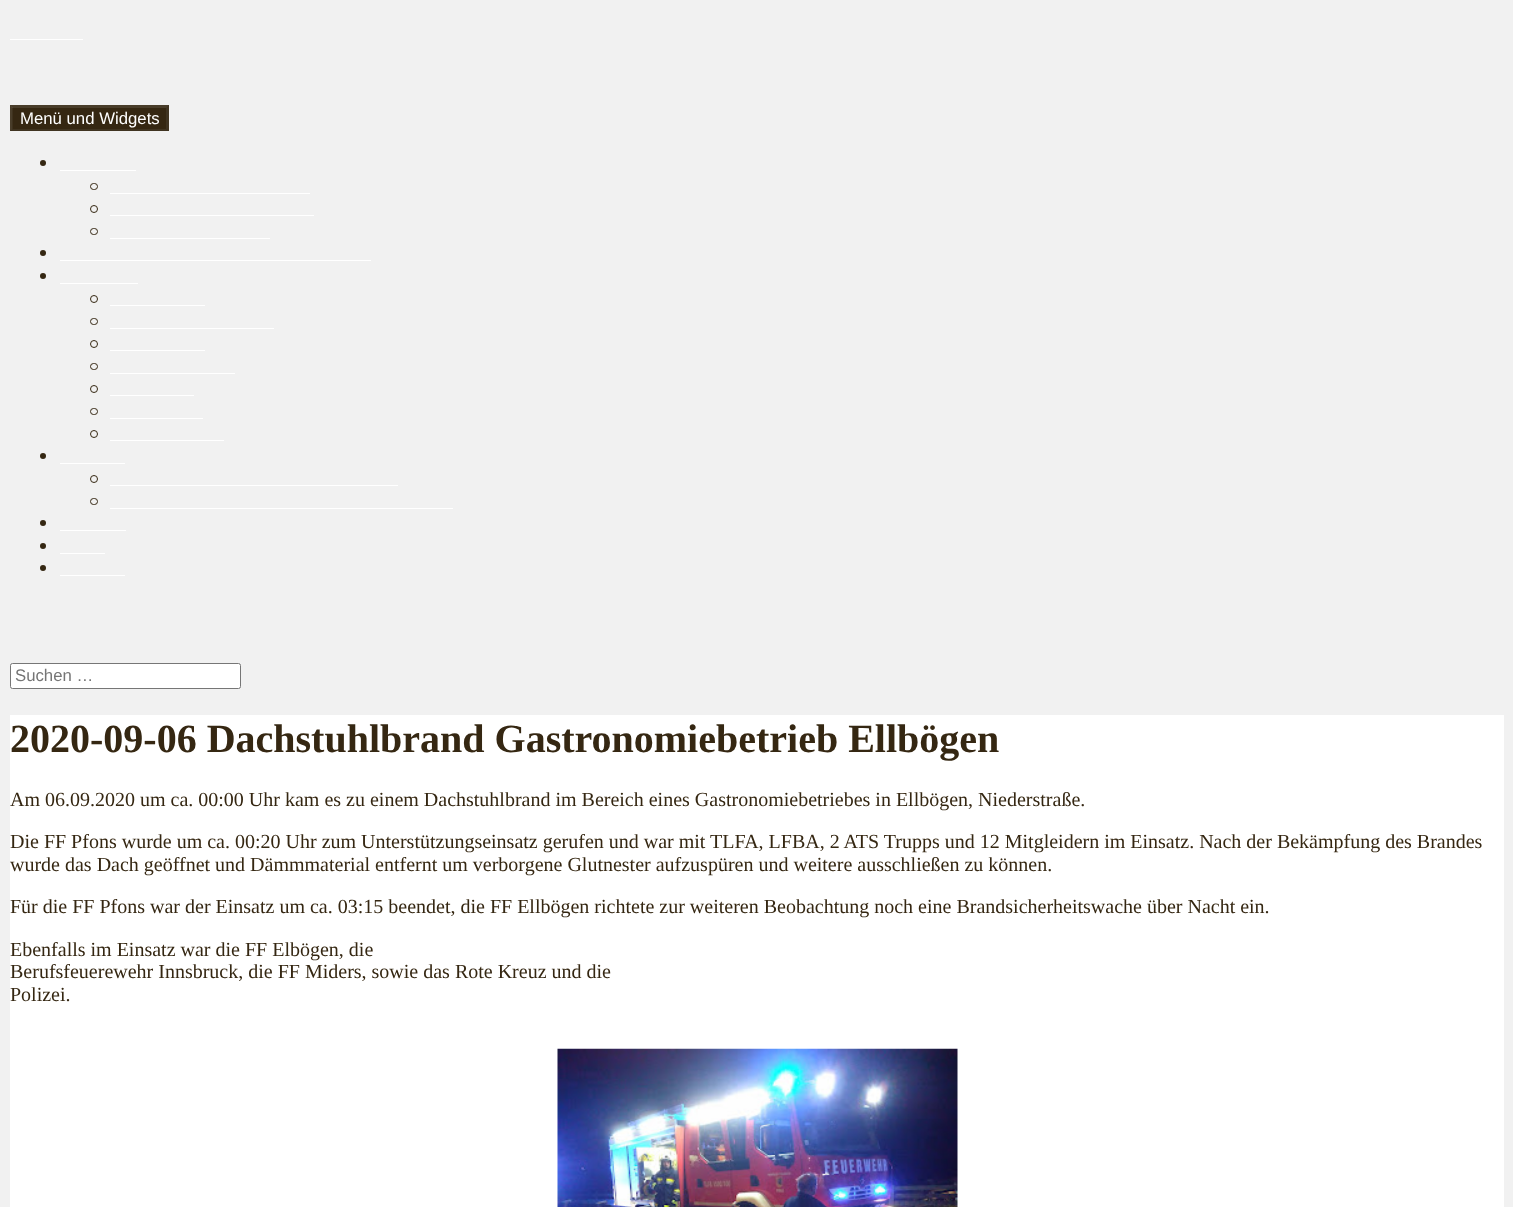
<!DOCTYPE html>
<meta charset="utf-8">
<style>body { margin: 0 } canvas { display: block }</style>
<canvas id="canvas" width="1513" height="1207"></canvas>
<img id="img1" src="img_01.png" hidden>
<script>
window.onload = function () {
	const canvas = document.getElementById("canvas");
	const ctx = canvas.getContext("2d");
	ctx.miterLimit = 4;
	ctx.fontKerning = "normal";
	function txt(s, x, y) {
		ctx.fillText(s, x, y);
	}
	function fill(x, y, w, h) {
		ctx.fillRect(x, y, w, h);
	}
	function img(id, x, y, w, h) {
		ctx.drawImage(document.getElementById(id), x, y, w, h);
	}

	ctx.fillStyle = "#F1F1F1";
	fill(0, 0, 1513, 1207);
	ctx.fillStyle = "#FFFFFF";
	fill(10, 39, 73, 1);
	ctx.fillStyle = "#352712";
	fill(10, 105, 159, 26);
	ctx.fillStyle = "#493D2A";
	ctx.beginPath();
	ctx.moveTo(10, 105);
	ctx.lineTo(169, 105);
	ctx.lineTo(166, 108);
	ctx.lineTo(12, 108);
	ctx.closePath();
	ctx.fill();
	ctx.fillStyle = "rgba(170, 170, 170, 0.1)";
	ctx.beginPath();
	ctx.moveTo(169, 105);
	ctx.lineTo(169, 131);
	ctx.lineTo(166, 129);
	ctx.lineTo(166, 107.5);
	ctx.closePath();
	ctx.fill();
	ctx.beginPath();
	ctx.moveTo(169, 131);
	ctx.lineTo(10, 131);
	ctx.lineTo(12, 129);
	ctx.lineTo(166, 129);
	ctx.closePath();
	ctx.fill();
	ctx.fillStyle = "rgba(255, 255, 255, 0.1)";
	ctx.beginPath();
	ctx.moveTo(10, 131);
	ctx.lineTo(10, 105);
	ctx.lineTo(12.5, 107.5);
	ctx.lineTo(12.5, 129);
	ctx.closePath();
	ctx.fill();
	ctx.fillStyle = "#352712";
	ctx.beginPath();
	ctx.arc(43, 163, 3, 0, Math.PI * 2);
	ctx.fill();
	ctx.fillStyle = "#FFFFFF";
	fill(60, 170, 76, 1);
	ctx.beginPath();
	ctx.roundRect(90.5, 183.5, 7, 6, 3);
	ctx.strokeStyle = "#352712";
	ctx.stroke();
	fill(110, 193, 200, 1);
	ctx.beginPath();
	ctx.arc(94, 209, 3.5, 0, Math.PI * 2);
	ctx.stroke();
	fill(110, 215, 204, 1);
	ctx.beginPath();
	ctx.roundRect(90.5, 228.5, 7, 6, 3);
	ctx.stroke();
	fill(110, 238, 160, 1);
	ctx.fillStyle = "#352712";
	ctx.beginPath();
	ctx.arc(43, 253, 3, 0, Math.PI * 2);
	ctx.fill();
	ctx.fillStyle = "#FFFFFF";
	fill(60, 260, 311, 1);
	ctx.fillStyle = "#352712";
	ctx.beginPath();
	ctx.arc(43, 276, 3, 0, Math.PI * 2);
	ctx.fill();
	ctx.fillStyle = "#FFFFFF";
	fill(60, 283, 78, 1);
	ctx.beginPath();
	ctx.arc(94, 299, 3.5, 0, Math.PI * 2);
	ctx.stroke();
	fill(110, 305, 95, 1);
	ctx.beginPath();
	ctx.roundRect(90.5, 318.5, 7, 6, 3);
	ctx.stroke();
	fill(110, 328, 164, 1);
	ctx.beginPath();
	ctx.arc(94, 344, 3.5, 0, Math.PI * 2);
	ctx.stroke();
	fill(110, 350, 95, 1);
	ctx.beginPath();
	ctx.roundRect(90.5, 363.5, 7, 6, 3);
	ctx.stroke();
	fill(110, 373, 125, 1);
	ctx.beginPath();
	ctx.arc(94, 389, 3.5, 0, Math.PI * 2);
	ctx.stroke();
	fill(110, 395, 84, 1);
	ctx.beginPath();
	ctx.roundRect(90.5, 408.5, 7, 6, 3);
	ctx.stroke();
	fill(110, 418, 93, 1);
	ctx.beginPath();
	ctx.arc(94, 434, 3.5, 0, Math.PI * 2);
	ctx.stroke();
	fill(110, 440, 114, 1);
	ctx.fillStyle = "#352712";
	ctx.beginPath();
	ctx.arc(43, 456, 3, 0, Math.PI * 2);
	ctx.fill();
	ctx.fillStyle = "#FFFFFF";
	fill(60, 463, 65, 1);
	ctx.beginPath();
	ctx.arc(94, 479, 3.5, 0, Math.PI * 2);
	ctx.stroke();
	fill(110, 485, 288, 1);
	ctx.beginPath();
	ctx.roundRect(90.5, 498.5, 7, 6, 3);
	ctx.stroke();
	fill(110, 508, 343, 1);
	ctx.fillStyle = "#352712";
	ctx.beginPath();
	ctx.arc(43, 523, 3, 0, Math.PI * 2);
	ctx.fill();
	ctx.fillStyle = "#FFFFFF";
	fill(60, 530, 66, 1);
	ctx.fillStyle = "#352712";
	ctx.beginPath();
	ctx.arc(43, 546, 3, 0, Math.PI * 2);
	ctx.fill();
	ctx.fillStyle = "#FFFFFF";
	fill(60, 553, 45, 1);
	ctx.fillStyle = "#352712";
	ctx.beginPath();
	ctx.arc(43, 568, 3, 0, Math.PI * 2);
	ctx.fill();
	ctx.fillStyle = "#FFFFFF";
	fill(60, 575, 65, 1);
	ctx.beginPath();
	ctx.roundRect(10.5, 663.5, 230, 25, 2);
	ctx.fill();
	ctx.strokeStyle = "#767676";
	ctx.stroke();
	fill(10, 715, 1494, 492);
	img("img1", 557, 1048, 401, 159);
	ctx.font = "16.75px Liberation Sans";
	txt("Menü und Widgets", 20, 124);
	ctx.fillStyle = "#757575";
	txt("Suchen …", 15, 681);
	ctx.font = "bold 40px Liberation Serif";
	ctx.fillStyle = "#352712";
	txt("2020-09-06 Dachstuhlbrand Gastronomiebetrieb Ellbögen", 10, 752);
	ctx.font = "20px Liberation Serif";
	txt("Am 06.09.2020 um ca. 00:00 Uhr kam es zu einem Dachstuhlbrand im Bereich eines Gastronomiebetriebes in Ellbögen, Niederstraße.", 10, 806);
	txt("Die FF Pfons wurde um ca. 00:20 Uhr zum Unterstützungseinsatz gerufen und war mit TLFA, LFBA, 2 ATS Trupps und 12 Mitgleidern im Einsatz. Nach der Bekämpfung des Brandes", 10, 848);
	txt("wurde das Dach geöffnet und Dämmmaterial entfernt um verborgene Glutnester aufzuspüren und weitere ausschließen zu können.", 10, 871);
	txt("Für die FF Pfons war der Einsatz um ca. 03:15 beendet, die FF Ellbögen richtete zur weiteren Beobachtung noch eine Brandsicherheitswache über Nacht ein.", 10, 913);
	txt("Ebenfalls im Einsatz war die FF Elbögen, die", 10, 956);
	txt("Berufsfeuerewehr Innsbruck, die FF Miders, sowie das Rote Kreuz und die", 10, 978);
	txt("Polizei.", 10, 1001);
};
</script>
